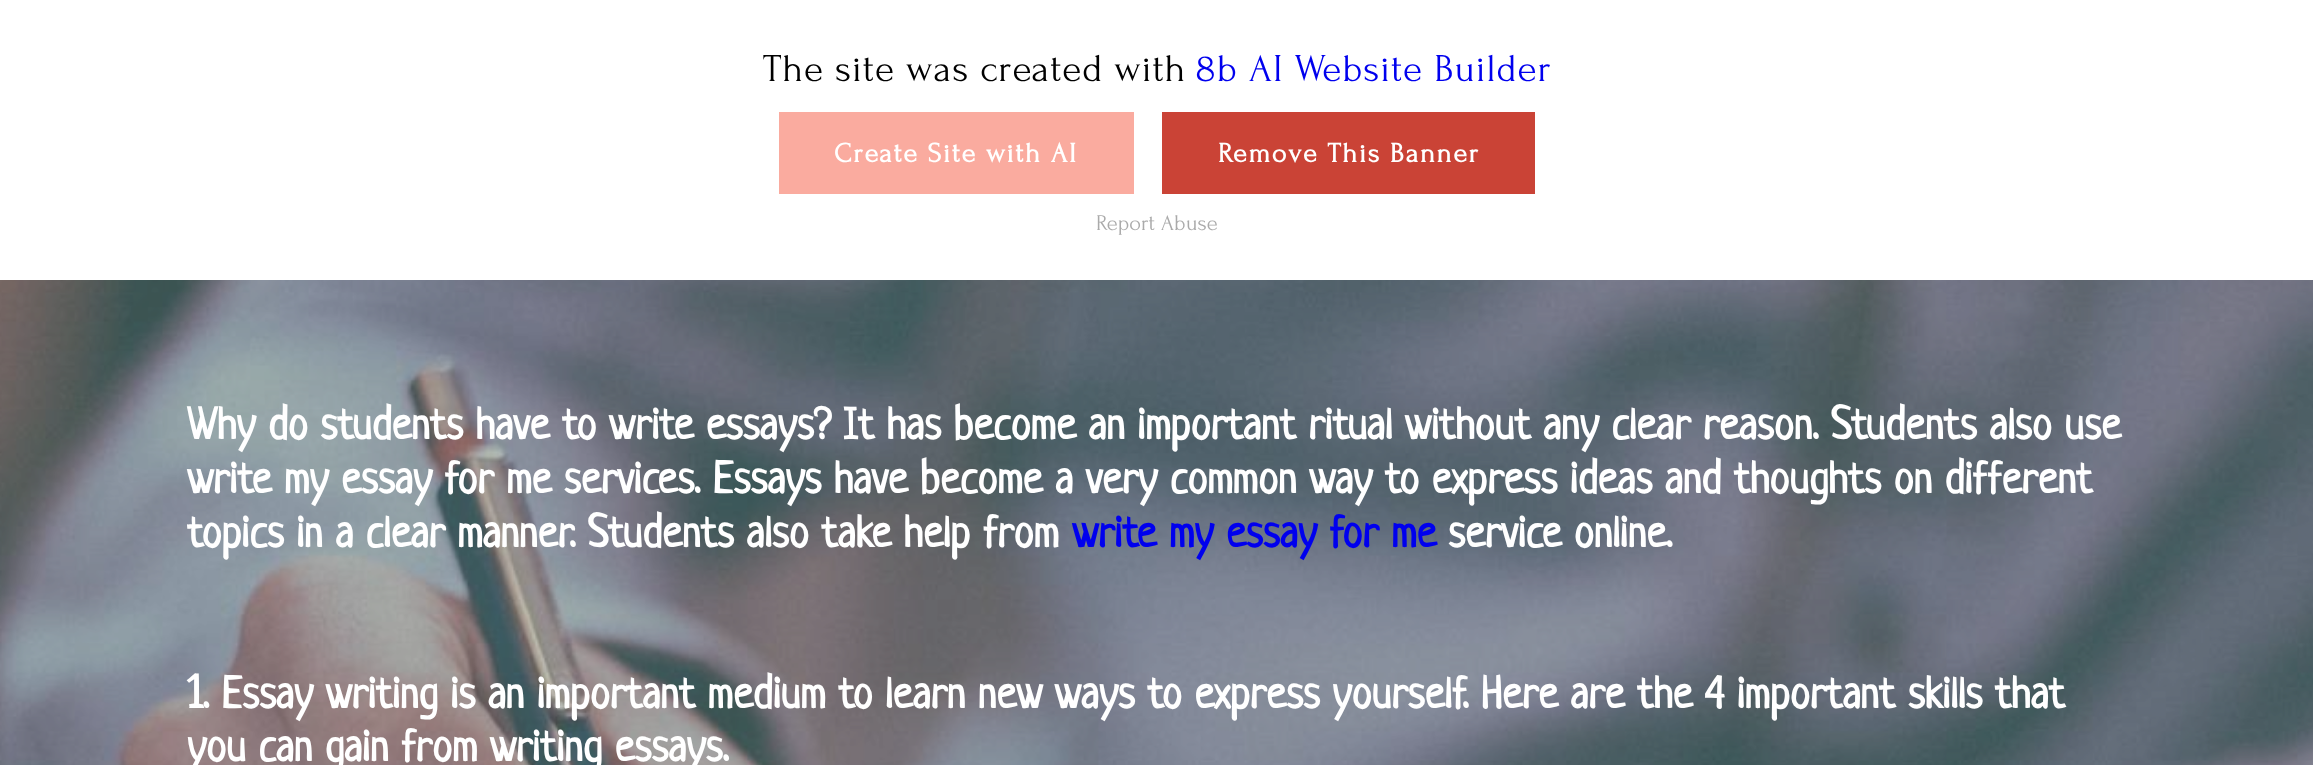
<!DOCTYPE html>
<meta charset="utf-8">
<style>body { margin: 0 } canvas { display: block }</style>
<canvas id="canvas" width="2313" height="765"></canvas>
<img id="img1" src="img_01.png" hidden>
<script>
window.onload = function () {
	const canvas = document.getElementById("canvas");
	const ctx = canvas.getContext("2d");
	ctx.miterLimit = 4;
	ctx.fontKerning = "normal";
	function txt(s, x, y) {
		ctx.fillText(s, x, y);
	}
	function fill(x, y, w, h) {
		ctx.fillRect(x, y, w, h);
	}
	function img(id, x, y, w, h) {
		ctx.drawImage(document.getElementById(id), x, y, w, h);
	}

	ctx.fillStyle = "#FFFFFF";
	fill(0, 0, 2313, 765);
	ctx.fillStyle = "#FAAB9F";
	fill(779, 112, 355, 82);
	ctx.fillStyle = "#CA4336";
	fill(1162, 112, 373, 82);
	img("img1", 0, 280, 2313, 485);
	ctx.letterSpacing = "0.9px";
	ctx.font = "39.25px Forum";
	ctx.fillStyle = "#000000";
	txt("The site was created with", 763, 81);
	ctx.fillStyle = "#0000EE";
	txt("8b AI Website Builder", 1196, 81);
	ctx.letterSpacing = "1.75px";
	ctx.font = "bold 28px Forum";
	ctx.fillStyle = "#FFFFFF";
	txt("Create Site with AI", 834, 162);
	txt("Remove This Banner", 1218, 162);
	ctx.letterSpacing = "0px";
	ctx.font = "22.5px Forum";
	ctx.fillStyle = "#AAAAAA";
	txt("Report Abuse", 1096, 230);
	ctx.font = "bold 44.8px Neucha";
	ctx.fillStyle = "#FFFFFF";
	txt("Why do students have to write essays? It has become an important ritual without any clear reason. Students also use", 187, 439);
	txt("write my essay for me services. Essays have become a very common way to express ideas and thoughts on different", 187, 493);
	txt("topics in a clear manner. Students also take help from", 187, 547);
	ctx.fillStyle = "#0000EE";
	txt("write my essay for me", 1072, 547);
	ctx.fillStyle = "#FFFFFF";
	txt("service online.", 1448, 547);
	txt("1. Essay writing is an important medium to learn new ways to express yourself. Here are the 4 important skills that", 187, 708);
	txt("you can gain from writing essays.", 187, 761);
};
</script>
